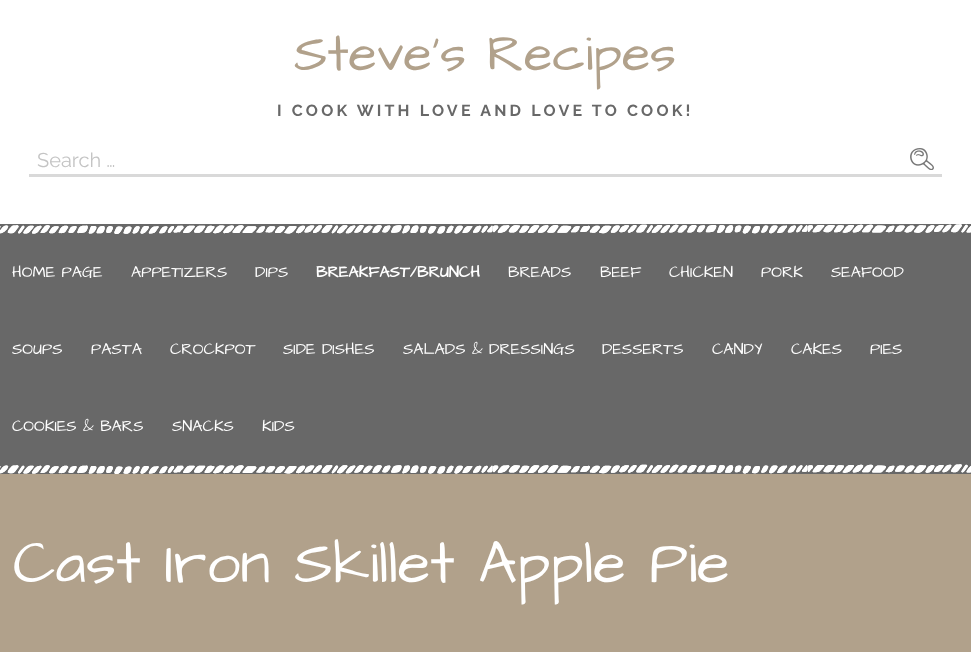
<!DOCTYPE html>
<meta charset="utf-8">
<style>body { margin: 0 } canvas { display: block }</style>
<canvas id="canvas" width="971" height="652"></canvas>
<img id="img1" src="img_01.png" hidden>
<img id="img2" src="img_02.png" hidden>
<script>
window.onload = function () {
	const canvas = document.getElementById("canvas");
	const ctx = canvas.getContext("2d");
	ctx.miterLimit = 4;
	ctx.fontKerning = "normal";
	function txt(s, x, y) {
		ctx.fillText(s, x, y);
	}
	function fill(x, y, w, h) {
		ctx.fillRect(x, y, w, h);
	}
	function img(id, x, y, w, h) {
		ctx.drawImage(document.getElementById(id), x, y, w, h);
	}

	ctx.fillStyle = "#FFFFFF";
	fill(0, 0, 971, 652);
	ctx.fillStyle = "#D9D9D9";
	fill(29, 174, 913, 3);
	img("img1", 910, 148, 24, 22);
	ctx.fillStyle = "#686868";
	fill(0, 224, 971, 250);
	img("img2", 0, 224, 971, 10);
	img("img2", 0, 464, 971, 10);
	ctx.fillStyle = "#B1A18B";
	fill(0, 474, 971, 178);
	ctx.font = "52px Architects Daughter";
	txt("Steve's Recipes", 294, 70);
	ctx.letterSpacing = "3.2px";
	ctx.font = "bold 16px Raleway";
	ctx.fillStyle = "#686868";
	txt("I COOK WITH LOVE AND LOVE TO COOK!", 277, 116);
	ctx.letterSpacing = "0px";
	ctx.font = "20px Raleway";
	ctx.fillStyle = "#C4C4C4";
	txt("Search …", 37, 167);
	ctx.font = "16px Architects Daughter";
	ctx.fillStyle = "#FFFFFF";
	txt("HOME PAGE", 12, 277);
	txt("APPETIZERS", 131, 277);
	txt("DIPS", 255, 277);
	ctx.font = "bold 16px Architects Daughter";
	txt("BREAKFAST/BRUNCH", 316, 277);
	ctx.font = "16px Architects Daughter";
	txt("BREADS", 508, 277);
	txt("BEEF", 600, 277);
	txt("CHICKEN", 669, 277);
	txt("PORK", 761, 277);
	txt("SEAFOOD", 831, 277);
	txt("SOUPS", 12, 354);
	txt("PASTA", 91, 354);
	txt("CROCKPOT", 170, 354);
	txt("SIDE DISHES", 283, 354);
	txt("SALADS & DRESSINGS", 403, 354);
	txt("DESSERTS", 602, 354);
	txt("CANDY", 712, 354);
	txt("CAKES", 791, 354);
	txt("PIES", 870, 354);
	txt("COOKIES & BARS", 12, 431);
	txt("SNACKS", 172, 431);
	txt("KIDS", 262, 431);
	ctx.font = "60px Architects Daughter";
	txt("Cast Iron Skillet Apple Pie", 13, 582);
};
</script>
